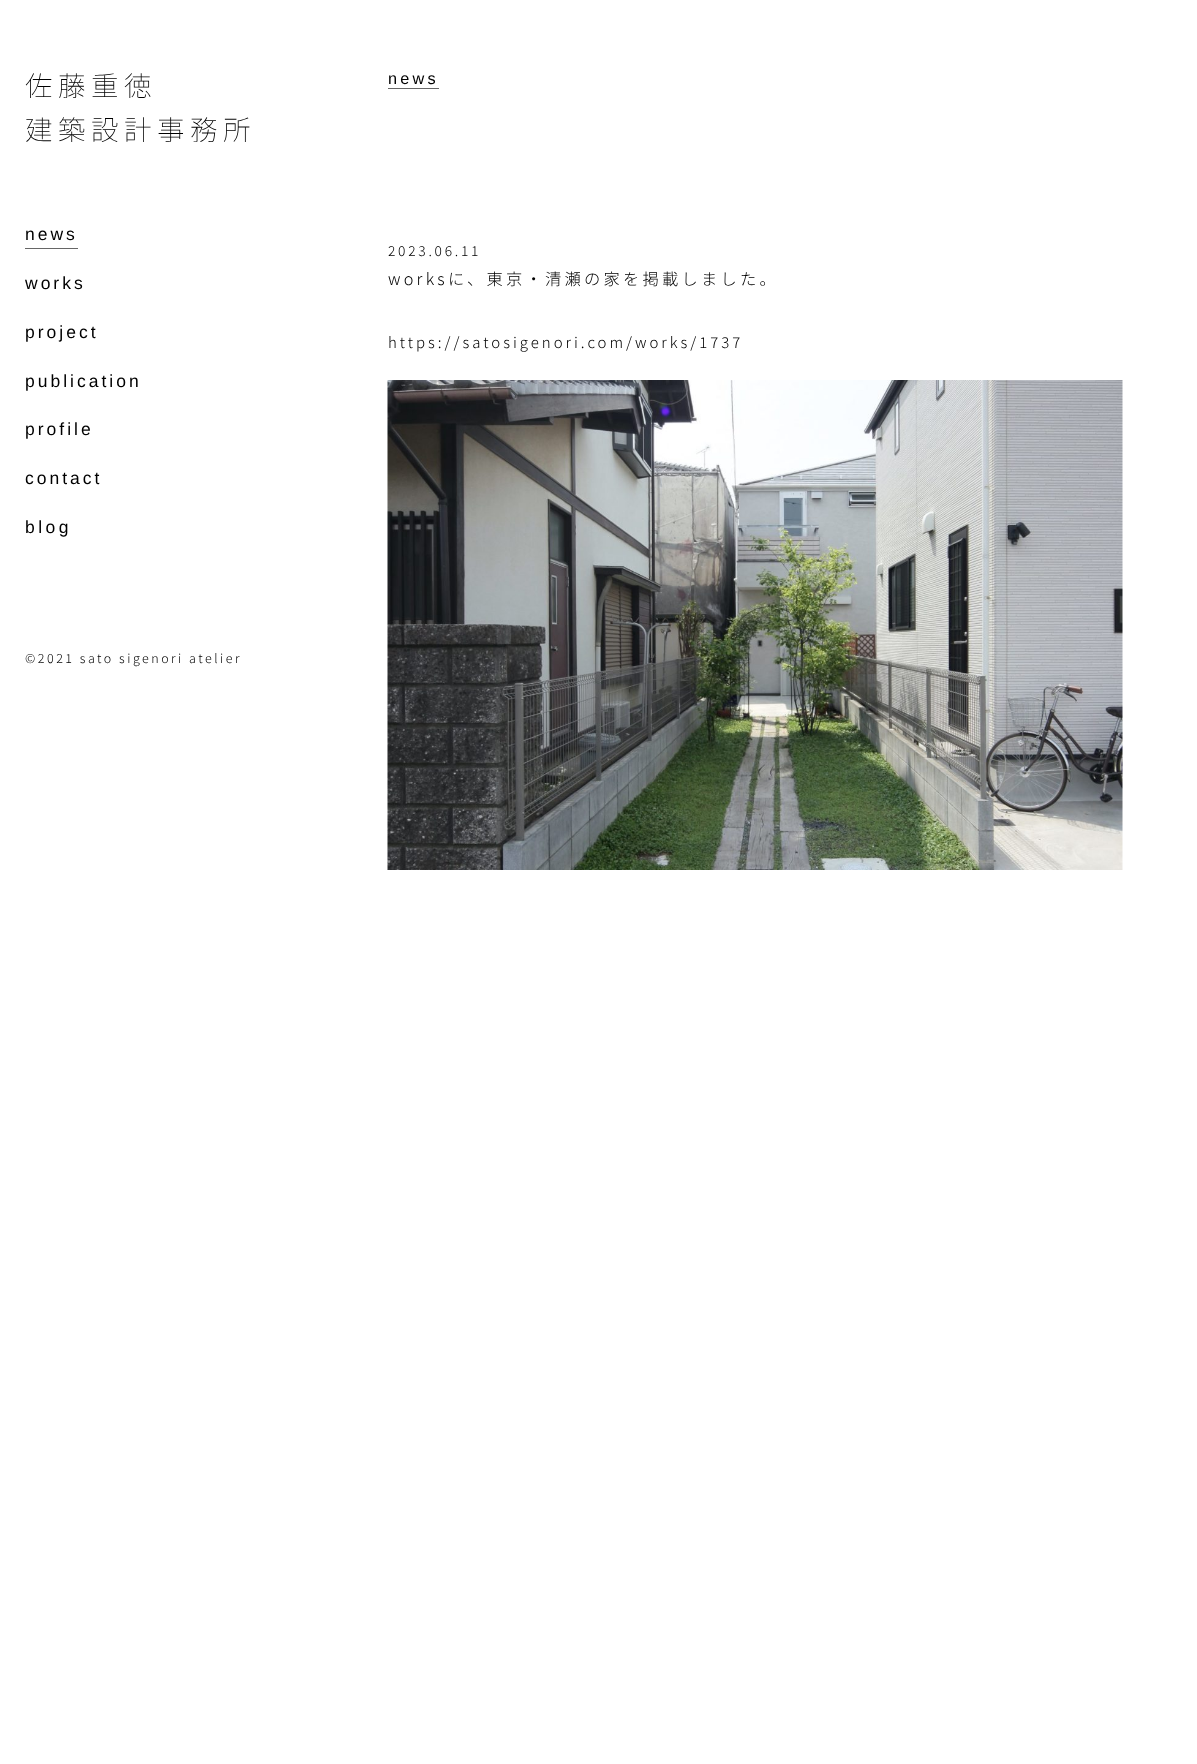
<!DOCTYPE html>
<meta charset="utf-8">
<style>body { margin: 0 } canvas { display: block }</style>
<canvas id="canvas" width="1197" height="1764"></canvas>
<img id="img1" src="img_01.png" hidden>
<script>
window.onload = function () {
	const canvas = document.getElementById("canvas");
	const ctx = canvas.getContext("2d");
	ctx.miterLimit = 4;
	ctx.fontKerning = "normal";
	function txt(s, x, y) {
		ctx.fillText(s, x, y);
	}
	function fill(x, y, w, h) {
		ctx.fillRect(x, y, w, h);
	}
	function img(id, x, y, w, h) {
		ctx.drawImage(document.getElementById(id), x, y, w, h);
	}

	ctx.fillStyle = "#FFFFFF";
	fill(0, 0, 1197, 1764);
	ctx.fillStyle = "#666666";
	fill(25, 248, 53, 1);
	fill(388, 88, 51, 1);
	img("img1", 387, 380, 736, 490);
	ctx.letterSpacing = "5.5px";
	ctx.font = "100 27.5px Noto Sans JP";
	ctx.fillStyle = "#000000";
	txt("佐藤重徳", 25, 96);
	txt("建築設計事務所", 25, 140);
	ctx.letterSpacing = "3px";
	ctx.font = "17.5px Liberation Sans";
	txt("news", 25, 240);
	txt("works", 25, 289);
	txt("project", 25, 338);
	txt("publication", 25, 387);
	txt("profile", 25, 435);
	txt("contact", 25, 484);
	ctx.letterSpacing = "3.5px";
	txt("blog", 25, 533);
	ctx.letterSpacing = "2.5px";
	ctx.font = "300 12.5px Noto Sans JP";
	txt("©2021 sato sigenori atelier", 25, 663);
	ctx.letterSpacing = "3.25px";
	ctx.font = "16.25px Liberation Sans";
	txt("news", 388, 84);
	ctx.letterSpacing = "2.75px";
	ctx.font = "300 13.75px Noto Sans JP";
	txt("2023.06.11", 388, 256);
	ctx.letterSpacing = "3.25px";
	ctx.font = "300 16.25px Noto Sans JP";
	txt("worksに、東京・清瀬の家を掲載しました。", 388, 285);
	ctx.letterSpacing = "3px";
	ctx.font = "300 15px Noto Sans JP";
	txt("https://satosigenori.com/works/1737", 388, 348);
};
</script>
